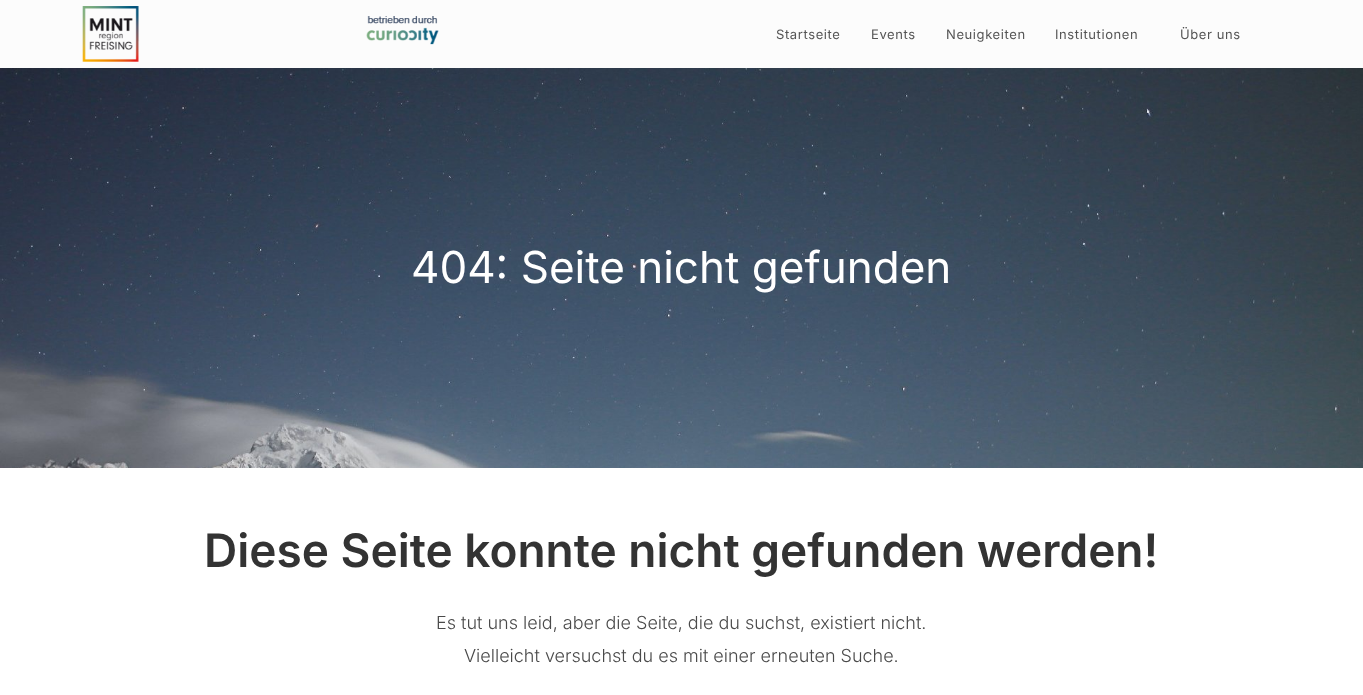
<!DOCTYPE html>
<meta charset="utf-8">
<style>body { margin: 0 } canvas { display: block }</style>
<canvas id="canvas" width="1363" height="695"></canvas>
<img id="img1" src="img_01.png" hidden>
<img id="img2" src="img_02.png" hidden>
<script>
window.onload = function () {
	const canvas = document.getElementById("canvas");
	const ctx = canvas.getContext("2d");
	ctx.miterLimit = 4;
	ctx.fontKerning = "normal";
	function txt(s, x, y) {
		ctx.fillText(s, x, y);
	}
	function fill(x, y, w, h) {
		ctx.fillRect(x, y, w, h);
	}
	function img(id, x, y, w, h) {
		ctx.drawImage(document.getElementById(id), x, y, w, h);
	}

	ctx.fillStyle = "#FFFFFF";
	fill(0, 0, 1363, 695);
	ctx.fillStyle = "#FCFCFC";
	fill(0, 0, 1363, 68);
	img("img1", 82, 6, 357, 56);
	img("img2", 0, 68, 1363, 400);
	ctx.letterSpacing = "0.6px";
	ctx.font = "13px Inter";
	ctx.fillStyle = "#555555";
	txt("Startseite", 776, 39);
	txt("Events", 871, 39);
	txt("Neuigkeiten", 946, 39);
	txt("Institutionen", 1055, 39);
	txt("Über uns", 1180, 39);
	ctx.letterSpacing = "0px";
	ctx.font = "44px Inter";
	ctx.fillStyle = "#FFFFFF";
	txt("404: Seite nicht gefunden", 411, 283);
	ctx.font = "600 46px Inter";
	ctx.fillStyle = "#333333";
	txt("Diese Seite konnte nicht gefunden werden!", 204, 567);
	ctx.font = "300 18px Inter";
	ctx.fillStyle = "#4A4A4A";
	txt("Es tut uns leid, aber die Seite, die du suchst, existiert nicht.", 436, 629);
	txt("Vielleicht versuchst du es mit einer erneuten Suche.", 464, 662);
};
</script>
